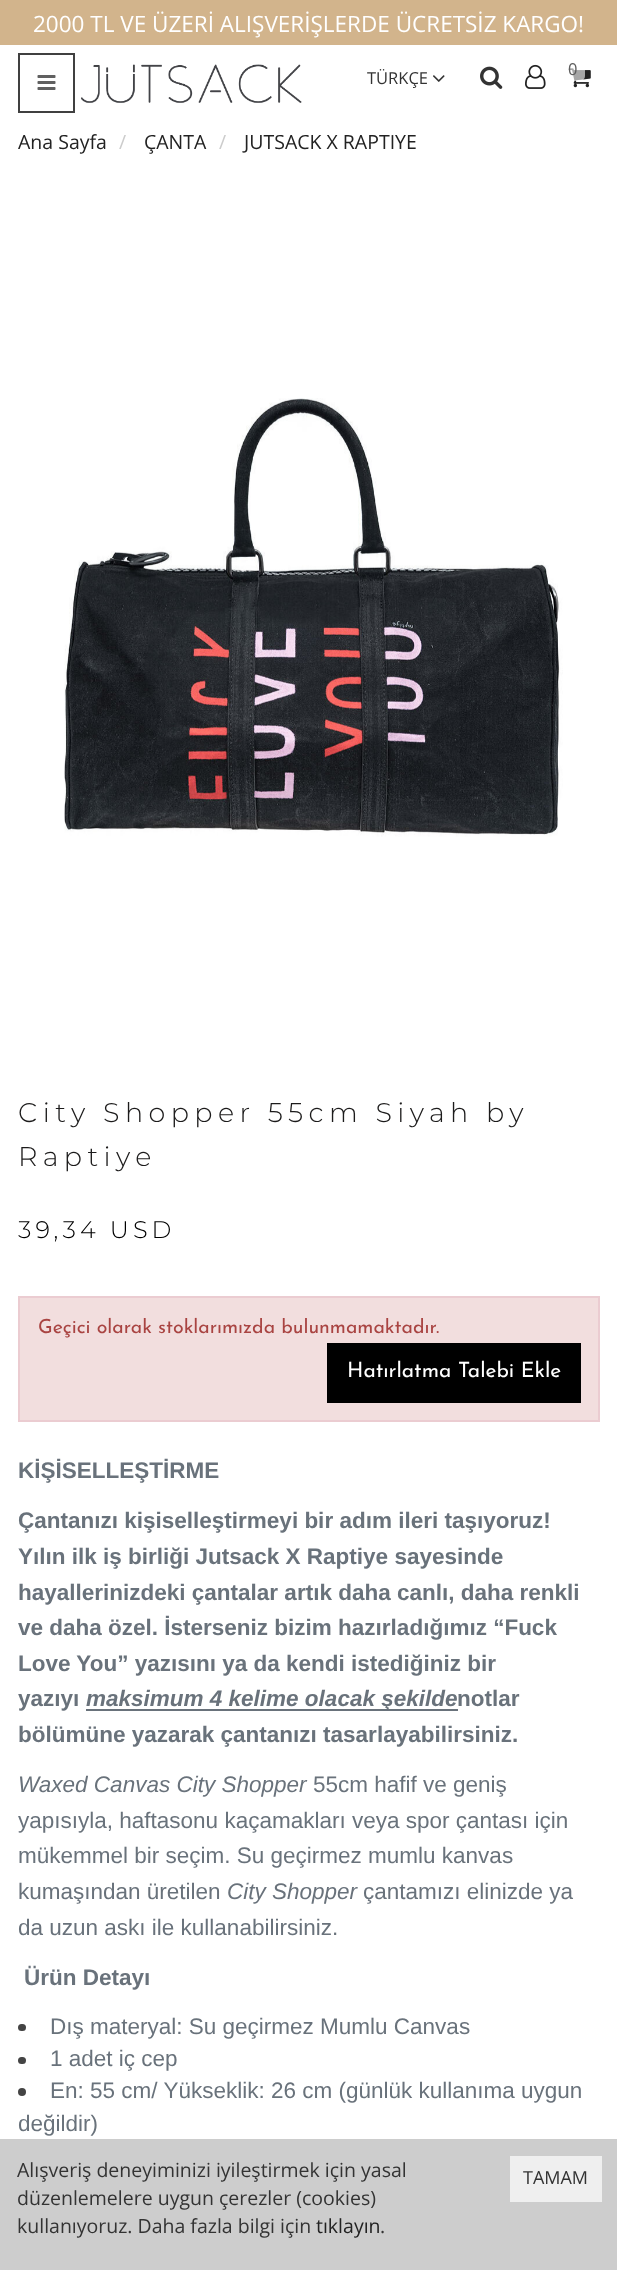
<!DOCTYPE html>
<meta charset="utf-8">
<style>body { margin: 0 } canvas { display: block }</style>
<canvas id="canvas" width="617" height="2270"></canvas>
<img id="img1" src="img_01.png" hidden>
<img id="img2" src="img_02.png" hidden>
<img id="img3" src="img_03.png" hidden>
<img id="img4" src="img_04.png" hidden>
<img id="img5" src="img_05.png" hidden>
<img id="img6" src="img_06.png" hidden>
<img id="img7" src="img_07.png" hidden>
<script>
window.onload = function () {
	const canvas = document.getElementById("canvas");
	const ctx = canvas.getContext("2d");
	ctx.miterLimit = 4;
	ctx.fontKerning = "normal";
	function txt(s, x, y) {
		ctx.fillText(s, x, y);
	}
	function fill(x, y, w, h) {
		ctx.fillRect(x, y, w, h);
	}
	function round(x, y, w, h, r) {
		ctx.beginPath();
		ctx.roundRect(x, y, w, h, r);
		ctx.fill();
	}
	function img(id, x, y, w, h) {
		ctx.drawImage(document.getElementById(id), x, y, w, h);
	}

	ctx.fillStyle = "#FFFFFF";
	fill(0, 0, 617, 2270);
	ctx.fillStyle = "#D2B48C";
	fill(0, 0, 617, 45);
	ctx.strokeStyle = "#404040";
	ctx.lineWidth = 2;
	ctx.strokeRect(19, 54, 55, 58);
	img("img1", 37, 75, 19, 15);
	img("img2", 81, 64, 221, 39);
	img("img3", 433, 75, 12, 7);
	img("img4", 480, 66, 23, 23);
	img("img5", 525, 64, 21, 25);
	img("img6", 568, 68, 23, 20);
	ctx.fillStyle = "rgba(255, 255, 255, 0.6)";
	round(561, 57, 24, 24, 5);
	img("img7", 64, 398, 499, 439);
	ctx.fillStyle = "#F2DEDE";
	ctx.beginPath();
	ctx.rect(19, 1297, 580, 124);
	ctx.fill();
	ctx.strokeStyle = "#EBCCD1";
	ctx.stroke();
	ctx.fillStyle = "#000000";
	fill(327, 1343, 254, 60);
	ctx.fillStyle = "#69727B";
	fill(86, 1709, 372, 2);
	ctx.fillStyle = "#444444";
	round(18, 2024, 8, 7, 3.5);
	round(18, 2057, 8, 7, 3.5);
	ctx.beginPath();
	ctx.arc(22, 2092, 4, 0, Math.PI * 2);
	ctx.fill();
	ctx.fillStyle = "#CDCDCD";
	fill(0, 2139, 617, 131);
	ctx.fillStyle = "#EFEFEF";
	fill(510, 2156, 92, 46);
	ctx.font = "22.5px Open Sans";
	ctx.fillStyle = "#FFFFFF";
	txt("2000 TL VE ÜZERİ ALIŞVERİŞLERDE ÜCRETSİZ KARGO!", 33, 32);
	ctx.font = "16.5px Open Sans";
	ctx.fillStyle = "#333333";
	txt("TÜRKÇE", 367, 84);
	ctx.fillStyle = "#5D5D5D";
	txt("0", 568, 75);
	ctx.font = "19.5px Open Sans";
	ctx.fillStyle = "#222222";
	txt("Ana Sayfa", 18, 149);
	ctx.fillStyle = "#CCCCCC";
	txt("/", 119, 149);
	ctx.fillStyle = "#222222";
	txt("ÇANTA", 144, 149);
	ctx.fillStyle = "#CCCCCC";
	txt("/", 219, 149);
	ctx.fillStyle = "#222222";
	txt("JUTSACK X RAPTIYE", 244, 149);
	ctx.letterSpacing = "5.4px";
	ctx.font = "300 27px Montserrat";
	ctx.fillStyle = "#1C1B1B";
	txt("City Shopper 55cm Siyah by", 18, 1122);
	txt("Raptiye", 18, 1166);
	ctx.letterSpacing = "4px";
	ctx.font = "300 24px Montserrat";
	ctx.fillStyle = "#000000";
	txt("39,34 USD", 18, 1238);
	ctx.letterSpacing = "0px";
	ctx.font = "19.5px Josefin Sans";
	ctx.fillStyle = "#A94442";
	txt("Geçici olarak stoklarımızda bulunmamaktadır.", 38, 1333);
	ctx.font = "21px Josefin Sans";
	ctx.fillStyle = "#FFFFFF";
	txt("Hatırlatma Talebi Ekle", 347, 1377);
	ctx.font = "bold 22.5px Liberation Sans";
	ctx.fillStyle = "#69727B";
	txt("KİŞİSELLEŞTİRME", 18, 1478);
	txt("Çantanızı kişiselleştirmeyi bir adım ileri taşıyoruz!", 18, 1528);
	txt("Yılın ilk iş birliği Jutsack X Raptiye sayesinde", 18, 1564);
	txt("hayallerinizdeki çantalar artık daha canlı, daha renkli", 18, 1600);
	txt("ve daha özel. İsterseniz bizim hazırladığımız “Fuck", 18, 1635);
	txt("Love You” yazısını ya da kendi istediğiniz bir", 18, 1671);
	txt("yazıyı", 18, 1706);
	ctx.font = "italic bold 22.5px Liberation Sans";
	txt("maksimum 4 kelime olacak şekilde", 86, 1706);
	ctx.font = "bold 22.5px Liberation Sans";
	txt("notlar", 457, 1706);
	txt("bölümüne yazarak çantanızı tasarlayabilirsiniz.", 18, 1742);
	ctx.font = "italic 22.5px Liberation Sans";
	txt("Waxed Canvas City Shopper", 18, 1792);
	ctx.font = "22.5px Liberation Sans";
	txt("55cm hafif ve geniş", 313, 1792);
	txt("yapısıyla, haftasonu kaçamakları veya spor çantası için", 18, 1828);
	txt("mükemmel bir seçim. Su geçirmez mumlu kanvas", 18, 1863);
	txt("kumaşından üretilen", 18, 1899);
	ctx.font = "italic 22.5px Liberation Sans";
	txt("City Shopper", 227, 1899);
	ctx.font = "22.5px Liberation Sans";
	txt("çantamızı elinizde ya", 363, 1899);
	txt("da uzun askı ile kullanabilirsiniz.", 18, 1935);
	ctx.font = "bold 22.5px Liberation Sans";
	txt("Ürün Detayı", 24, 1985);
	ctx.font = "22.5px Liberation Sans";
	txt("Dış materyal: Su geçirmez Mumlu Canvas", 50, 2034);
	txt("1 adet iç cep", 50, 2066);
	txt("En: 55 cm/ Yükseklik: 26 cm (günlük kullanıma uygun", 50, 2098);
	txt("değildir)", 18, 2131);
	ctx.font = "19.5px Open Sans";
	ctx.fillStyle = "#333333";
	txt("Alışveriş deneyiminizi iyileştirmek için yasal", 17, 2177);
	txt("düzenlemelere uygun çerezler (cookies)", 17, 2205);
	txt("kullanıyoruz. Daha fazla bilgi için", 17, 2233);
	ctx.fillStyle = "#222222";
	txt("tıklayın", 316, 2233);
	ctx.fillStyle = "#333333";
	txt(".", 380, 2233);
	ctx.font = "18px Open Sans";
	txt("TAMAM", 523, 2184);
};
</script>
